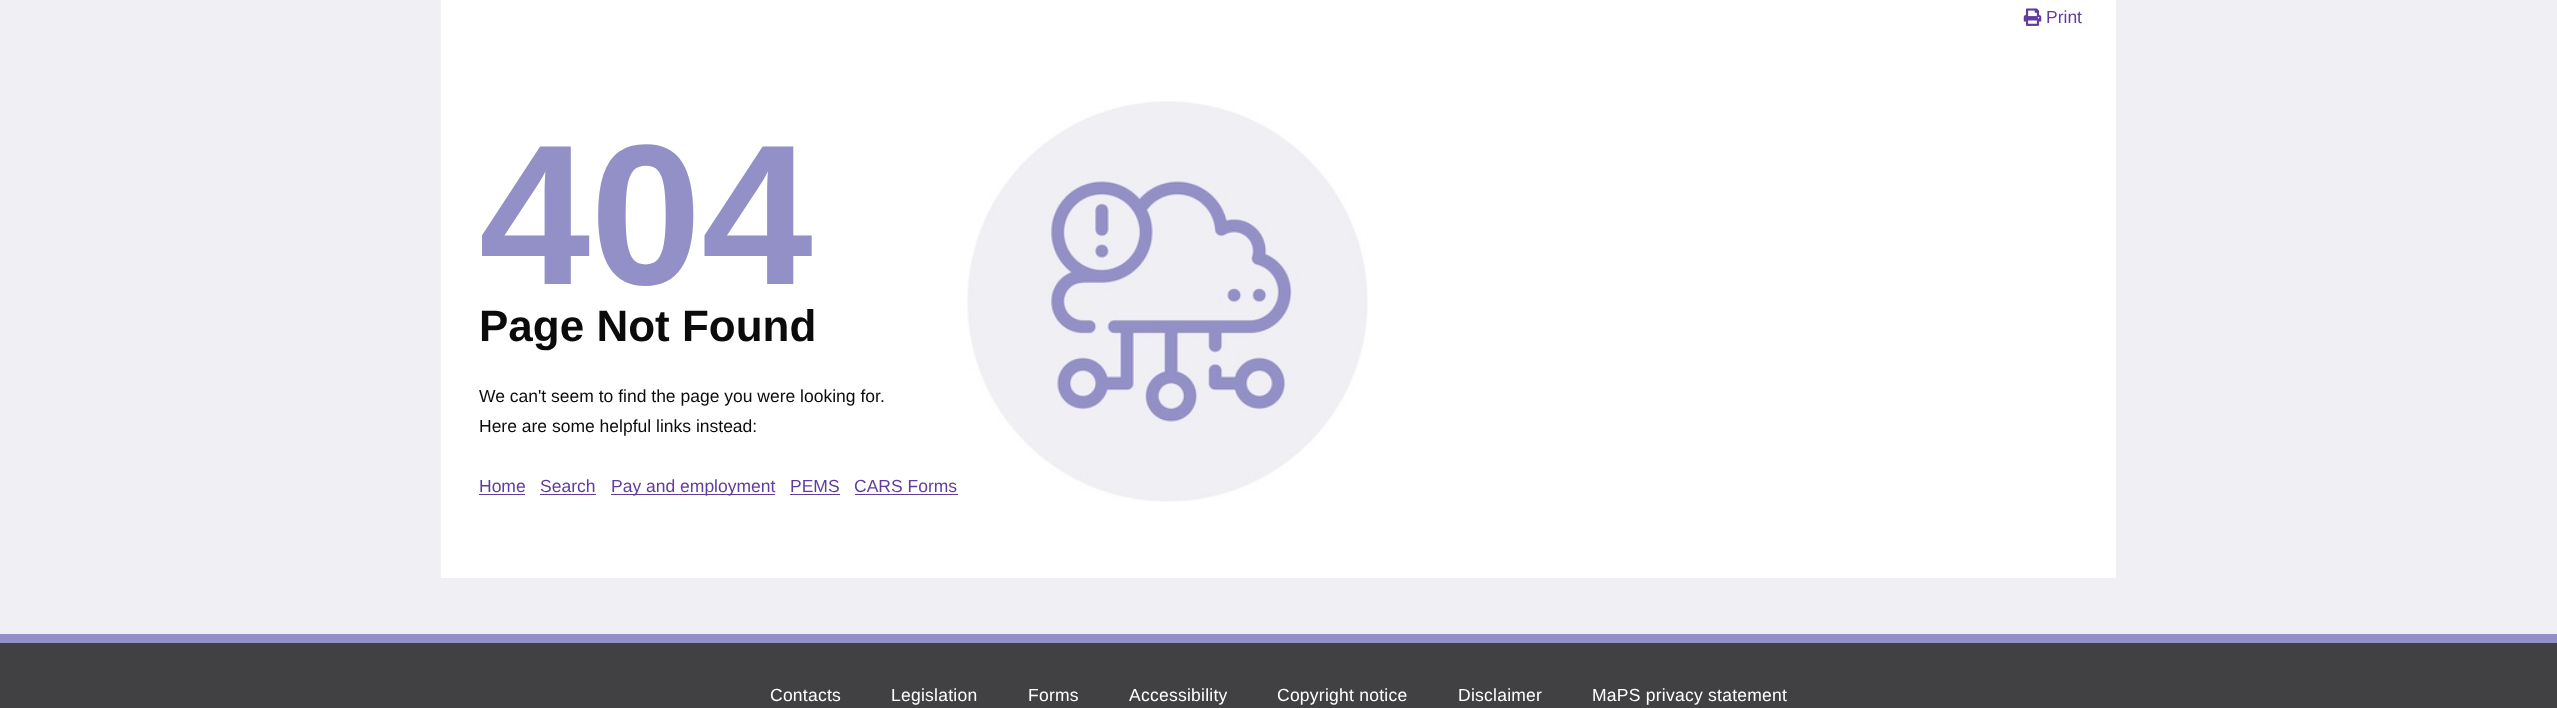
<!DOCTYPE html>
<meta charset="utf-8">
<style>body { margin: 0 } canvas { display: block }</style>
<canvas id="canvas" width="2557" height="708"></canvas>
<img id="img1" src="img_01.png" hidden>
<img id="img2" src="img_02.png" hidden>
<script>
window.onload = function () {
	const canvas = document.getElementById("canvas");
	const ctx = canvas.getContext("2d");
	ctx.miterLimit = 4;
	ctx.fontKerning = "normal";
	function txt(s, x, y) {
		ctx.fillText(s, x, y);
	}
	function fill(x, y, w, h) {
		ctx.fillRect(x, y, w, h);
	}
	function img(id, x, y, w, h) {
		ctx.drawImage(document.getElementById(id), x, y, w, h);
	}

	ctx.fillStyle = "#F0F0F4";
	fill(0, 0, 2557, 708);
	ctx.fillStyle = "#FFFFFF";
	fill(441, 0, 1675, 578);
	img("img1", 2023, 8, 19, 18);
	ctx.fillStyle = "#613C9D";
	fill(479, 494, 46, 1);
	fill(540, 494, 56, 1);
	fill(611, 494, 164, 1);
	fill(790, 494, 50, 1);
	fill(855, 494, 103, 1);
	img("img2", 967, 101, 401, 401);
	ctx.fillStyle = "#414042";
	fill(0, 643, 2557, 65);
	ctx.fillStyle = "#9290C6";
	fill(0, 634, 2557, 9);
	ctx.font = "17.5px Liberation Sans";
	ctx.fillStyle = "#613C9D";
	txt("Print", 2046, 23);
	ctx.font = "bold 200px Liberation Sans";
	ctx.fillStyle = "#9290C6";
	txt("404", 479, 284);
	ctx.font = "bold 44px Liberation Sans";
	ctx.fillStyle = "#0B0B0B";
	txt("Page Not Found", 479, 341);
	ctx.font = "17.5px Liberation Sans";
	txt("We can't seem to find the page you were looking for.", 479, 402);
	txt("Here are some helpful links instead:", 479, 432);
	ctx.fillStyle = "#613C9D";
	txt("Home", 479, 492);
	txt("Search", 540, 492);
	txt("Pay and employment", 611, 492);
	txt("PEMS", 790, 492);
	txt("CARS Forms", 854, 492);
	ctx.letterSpacing = "0.25px";
	ctx.fillStyle = "#FFFFFF";
	txt("Contacts", 770, 701);
	txt("Legislation", 891, 701);
	txt("Forms", 1028, 701);
	txt("Accessibility", 1129, 701);
	txt("Copyright notice", 1277, 701);
	txt("Disclaimer", 1458, 701);
	txt("MaPS privacy statement", 1592, 701);
};
</script>
